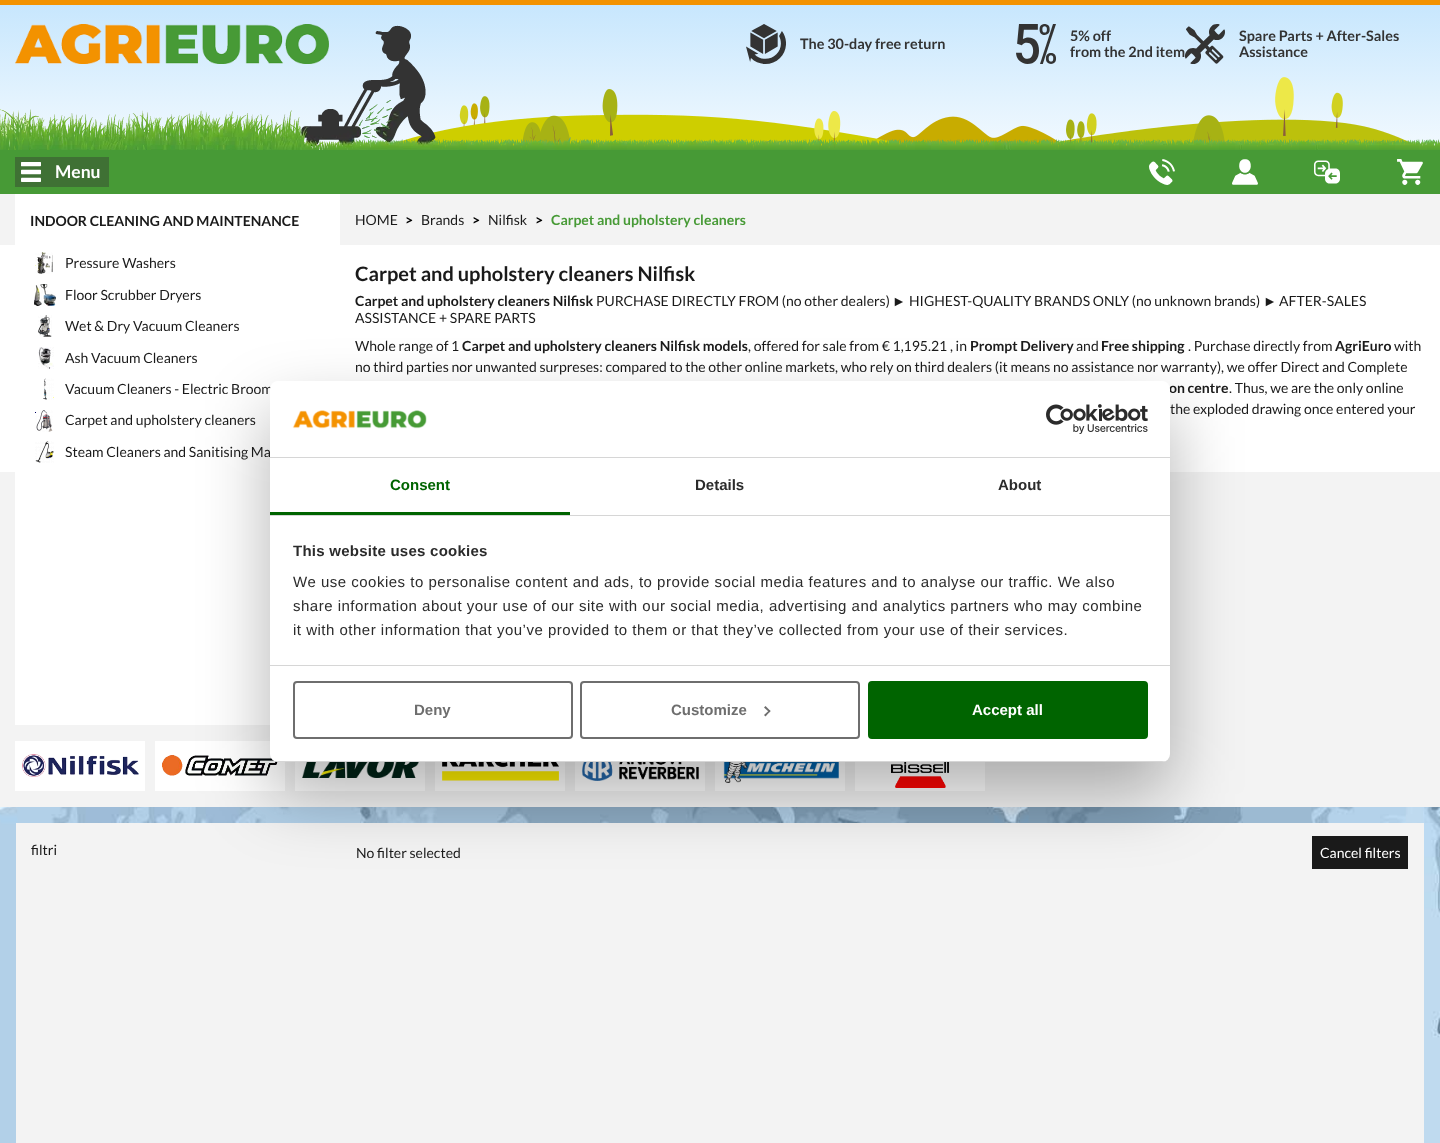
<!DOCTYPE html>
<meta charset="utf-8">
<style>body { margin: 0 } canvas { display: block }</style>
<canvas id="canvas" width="1440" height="1143"></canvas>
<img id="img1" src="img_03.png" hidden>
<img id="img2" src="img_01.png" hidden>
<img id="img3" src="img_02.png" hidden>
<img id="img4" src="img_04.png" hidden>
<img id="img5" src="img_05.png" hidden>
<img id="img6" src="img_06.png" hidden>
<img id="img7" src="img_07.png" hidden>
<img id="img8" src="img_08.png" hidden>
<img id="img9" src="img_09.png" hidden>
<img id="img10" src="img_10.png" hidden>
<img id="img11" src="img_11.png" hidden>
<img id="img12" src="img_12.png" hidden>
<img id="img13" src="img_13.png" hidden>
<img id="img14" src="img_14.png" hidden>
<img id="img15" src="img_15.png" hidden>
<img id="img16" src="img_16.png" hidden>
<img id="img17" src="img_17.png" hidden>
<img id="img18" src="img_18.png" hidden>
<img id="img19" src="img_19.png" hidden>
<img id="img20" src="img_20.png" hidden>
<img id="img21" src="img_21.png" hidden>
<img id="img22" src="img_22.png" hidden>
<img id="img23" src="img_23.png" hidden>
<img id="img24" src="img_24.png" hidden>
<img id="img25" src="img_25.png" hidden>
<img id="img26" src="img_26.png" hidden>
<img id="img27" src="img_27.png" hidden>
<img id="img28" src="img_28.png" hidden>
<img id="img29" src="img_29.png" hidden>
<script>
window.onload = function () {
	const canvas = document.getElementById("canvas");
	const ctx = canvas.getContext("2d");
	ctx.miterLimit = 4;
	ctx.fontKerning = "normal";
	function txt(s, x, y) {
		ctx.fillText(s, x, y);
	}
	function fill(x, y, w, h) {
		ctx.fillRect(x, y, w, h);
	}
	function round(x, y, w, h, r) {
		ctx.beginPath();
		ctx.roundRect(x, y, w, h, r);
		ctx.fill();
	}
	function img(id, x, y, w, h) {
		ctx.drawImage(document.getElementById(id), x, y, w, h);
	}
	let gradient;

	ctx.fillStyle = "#FFFFFF";
	fill(0, 0, 1440, 1143);
	gradient = ctx.createLinearGradient(720, 194, 720, 0);
	gradient.addColorStop(0, "#FFFFFF");
	gradient.addColorStop(1, "#C6E6FD");
	ctx.fillStyle = gradient;
	fill(0, 5, 1440, 145);
	ctx.fillStyle = "#F39200";
	fill(0, 0, 1440, 5);
	img("img1", 389, 77, 1031, 72);
	img("img2", 0, 25, 1440, 125);
	img("img3", 0, 109, 29, 41);
	img("img4", 15, 24, 314, 40);
	img("img5", 746, 24, 40, 40);
	img("img6", 1016, 24, 40, 40);
	img("img7", 1185, 24, 40, 40);
	ctx.fillStyle = "#479A36";
	fill(0, 150, 1440, 44);
	ctx.fillStyle = "#3F7134";
	fill(15, 157, 94, 30);
	img("img8", 21, 162, 20, 20);
	img("img9", 1149, 159, 26, 26);
	img("img10", 1232, 159, 26, 26);
	img("img11", 1314, 160, 26, 24);
	img("img12", 1397, 159, 26, 26);
	ctx.fillStyle = "#F3F3F3";
	fill(0, 194, 1440, 613);
	ctx.fillStyle = "#FFFFFF";
	fill(0, 245, 1440, 227);
	fill(15, 194, 325, 531);
	img("img13", 35, 252, 18, 22);
	img("img14", 34, 284, 22, 22);
	img("img15", 38, 315, 14, 22);
	img("img16", 38, 347, 16, 22);
	img("img17", 43, 378, 11, 22);
	img("img18", 35, 410, 18, 22);
	img("img19", 35, 441, 19, 22);
	fill(15, 741, 130, 50);
	img("img20", 22, 754, 117, 23);
	fill(155, 741, 130, 50);
	img("img21", 162, 755, 116, 21);
	fill(295, 762, 130, 29);
	img("img22", 302, 762, 117, 16);
	fill(435, 762, 130, 29);
	img("img23", 442, 762, 117, 19);
	fill(575, 762, 130, 29);
	img("img24", 582, 762, 117, 19);
	fill(715, 762, 130, 29);
	img("img25", 723, 762, 116, 21);
	fill(855, 762, 130, 29);
	img("img26", 891, 762, 58, 26);
	img("img27", 0, 807, 1440, 336);
	ctx.fillStyle = "#F3F3F3";
	fill(16, 823, 1408, 320);
	ctx.fillStyle = "#1A1A1A";
	fill(1312, 836, 96, 33);
	ctx.fillStyle = "rgba(0, 0, 0, 0.3)";
	ctx.filter = "blur(34px)";
	ctx.beginPath();
	ctx.roundRect(270, 413, 900, 381, 8);
	ctx.fill();
	ctx.filter = "none";
	ctx.font = "bold 14.4px Lato";
	ctx.fillStyle = "#333333";
	txt("The 30-day free return", 800, 49);
	txt("5% off", 1070, 41);
	txt("from the 2nd item", 1070, 57);
	txt("Spare Parts + After-Sales", 1239, 41);
	txt("Assistance", 1239, 57);
	ctx.font = "bold 17.5px Lato";
	ctx.fillStyle = "#FFFFFF";
	txt("Menu", 55, 178);
	ctx.font = "bold 14px Lato";
	ctx.fillStyle = "#1A1A1A";
	txt("INDOOR CLEANING AND MAINTENANCE", 30, 226);
	ctx.font = "14px Lato";
	txt("Pressure Washers", 65, 268);
	txt("Floor Scrubber Dryers", 65, 300);
	txt("Wet & Dry Vacuum Cleaners", 65, 331);
	txt("Ash Vacuum Cleaners", 65, 363);
	txt("Vacuum Cleaners - Electric Broom", 65, 394);
	txt("Carpet and upholstery cleaners", 65, 425);
	txt("Steam Cleaners and Sanitising Ma", 65, 457);
	txt("HOME", 355, 225);
	ctx.font = "bold 14px Lato";
	ctx.fillStyle = "#000000";
	txt(">", 405, 225);
	ctx.font = "14px Lato";
	ctx.fillStyle = "#1A1A1A";
	txt("Brands", 421, 225);
	ctx.font = "bold 14px Lato";
	ctx.fillStyle = "#000000";
	txt(">", 472, 225);
	ctx.font = "14px Lato";
	ctx.fillStyle = "#1A1A1A";
	txt("Nilfisk", 488, 225);
	ctx.font = "bold 14px Lato";
	ctx.fillStyle = "#000000";
	txt(">", 535, 225);
	ctx.fillStyle = "#479A36";
	txt("Carpet and upholstery cleaners", 551, 225);
	ctx.font = "bold 20px Lato";
	ctx.fillStyle = "#1A1A1A";
	txt("Carpet and upholstery cleaners Nilfisk", 355, 281);
	ctx.font = "bold 14px Lato";
	txt("Carpet and upholstery cleaners Nilfisk", 355, 306);
	ctx.font = "14px Lato";
	txt("PURCHASE DIRECTLY FROM (no other dealers)", 596, 306);
	ctx.font = "14px Liberation Sans";
	txt("►", 892, 306);
	ctx.font = "14px Lato";
	txt("HIGHEST-QUALITY BRANDS ONLY (no unknown brands)", 909, 306);
	ctx.font = "14px Liberation Sans";
	txt("►", 1263, 306);
	ctx.font = "14px Lato";
	txt("AFTER-SALES", 1279, 306);
	txt("ASSISTANCE + SPARE PARTS", 355, 323);
	txt("Whole range of 1", 355, 351);
	ctx.font = "bold 14px Lato";
	txt("Carpet and upholstery cleaners Nilfisk models", 462, 351);
	ctx.font = "14px Lato";
	txt(", offered for sale from € 1,195.21 , in", 748, 351);
	ctx.font = "bold 14px Lato";
	txt("Prompt Delivery", 970, 351);
	ctx.font = "14px Lato";
	txt("and", 1076, 351);
	ctx.font = "bold 14px Lato";
	txt("Free shipping", 1101, 351);
	ctx.font = "14px Lato";
	txt(". Purchase directly from", 1188, 351);
	ctx.font = "bold 14px Lato";
	txt("AgriEuro", 1335, 351);
	ctx.font = "14px Lato";
	txt("with", 1394, 351);
	txt("no third parties nor unwanted surpreses: compared to the other online markets, who rely on third dealers (it means no assistance nor warranty), we offer Direct and Complete", 355, 372);
	ctx.font = "bold 14px Lato";
	txt("on centre", 1169, 393);
	ctx.font = "14px Lato";
	txt(". Thus, we are the only online", 1229, 393);
	txt("the exploded drawing once entered your", 1170, 414);
	txt("filtri", 31, 855);
	txt("No filter selected", 356, 858);
	ctx.fillStyle = "#FFFFFF";
	txt("Cancel filters", 1320, 858);
	round(270, 381, 900, 381, 8);
	ctx.fillStyle = "#D6D6D6";
	fill(270, 457, 900, 1);
	img("img28", 292, 410, 135, 19);
	img("img29", 1046, 404, 102, 30);
	fill(270, 515, 900, 1);
	ctx.fillStyle = "#006400";
	fill(270, 512, 300, 3);
	ctx.font = "bold 15px Liberation Sans";
	txt("Consent", 390, 490);
	ctx.fillStyle = "#2B2B2B";
	txt("Details", 695, 490);
	txt("About", 998, 490);
	ctx.fillStyle = "#D6D6D6";
	fill(270, 665, 900, 1);
	ctx.letterSpacing = "0.25px";
	ctx.fillStyle = "#2B2B2B";
	txt("This website uses cookies", 293, 556);
	ctx.letterSpacing = "0.5px";
	ctx.font = "15px Liberation Sans";
	txt("We use cookies to personalise content and ads, to provide social media features and to analyse our traffic. We also", 293, 587);
	txt("share information about your use of our site with our social media, advertising and analytics partners who may combine", 293, 611);
	txt("it with other information that you’ve provided to them or that they’ve collected from your use of their services.", 293, 635);
	ctx.save();
	ctx.beginPath();
	ctx.roundRect(270, 381, 900, 381, 8);
	ctx.clip();
	ctx.fillStyle = "#D6D6D6";
	fill(270, 761, 900, 1);
	ctx.restore();
	ctx.beginPath();
	ctx.roundRect(294, 682, 278, 56, 3);
	ctx.strokeStyle = "#6E6E6E";
	ctx.lineWidth = 2;
	ctx.stroke();
	ctx.letterSpacing = "0px";
	ctx.font = "bold 15px Liberation Sans";
	ctx.fillStyle = "#6E6E6E";
	txt("Deny", 414, 715);
	ctx.beginPath();
	ctx.roundRect(581, 682, 278, 56, 3);
	ctx.stroke();
	txt("Customize", 671, 715);
	ctx.beginPath();
	ctx.moveTo(765.5, 706);
	ctx.lineTo(770.5, 711);
	ctx.lineTo(769.5, 712.5);
	ctx.lineTo(764, 707.5);
	ctx.closePath();
	ctx.fill();
	ctx.beginPath();
	ctx.moveTo(769.5, 710);
	ctx.lineTo(770.5, 711);
	ctx.lineTo(765.5, 716.5);
	ctx.lineTo(764, 715);
	ctx.closePath();
	ctx.fill();
	ctx.fillStyle = "#006400";
	ctx.beginPath();
	ctx.roundRect(869, 682, 278, 56, 3);
	ctx.fill();
	ctx.strokeStyle = "#006400";
	ctx.stroke();
	ctx.fillStyle = "#FFFFFF";
	txt("Accept all", 972, 715);
};
</script>
